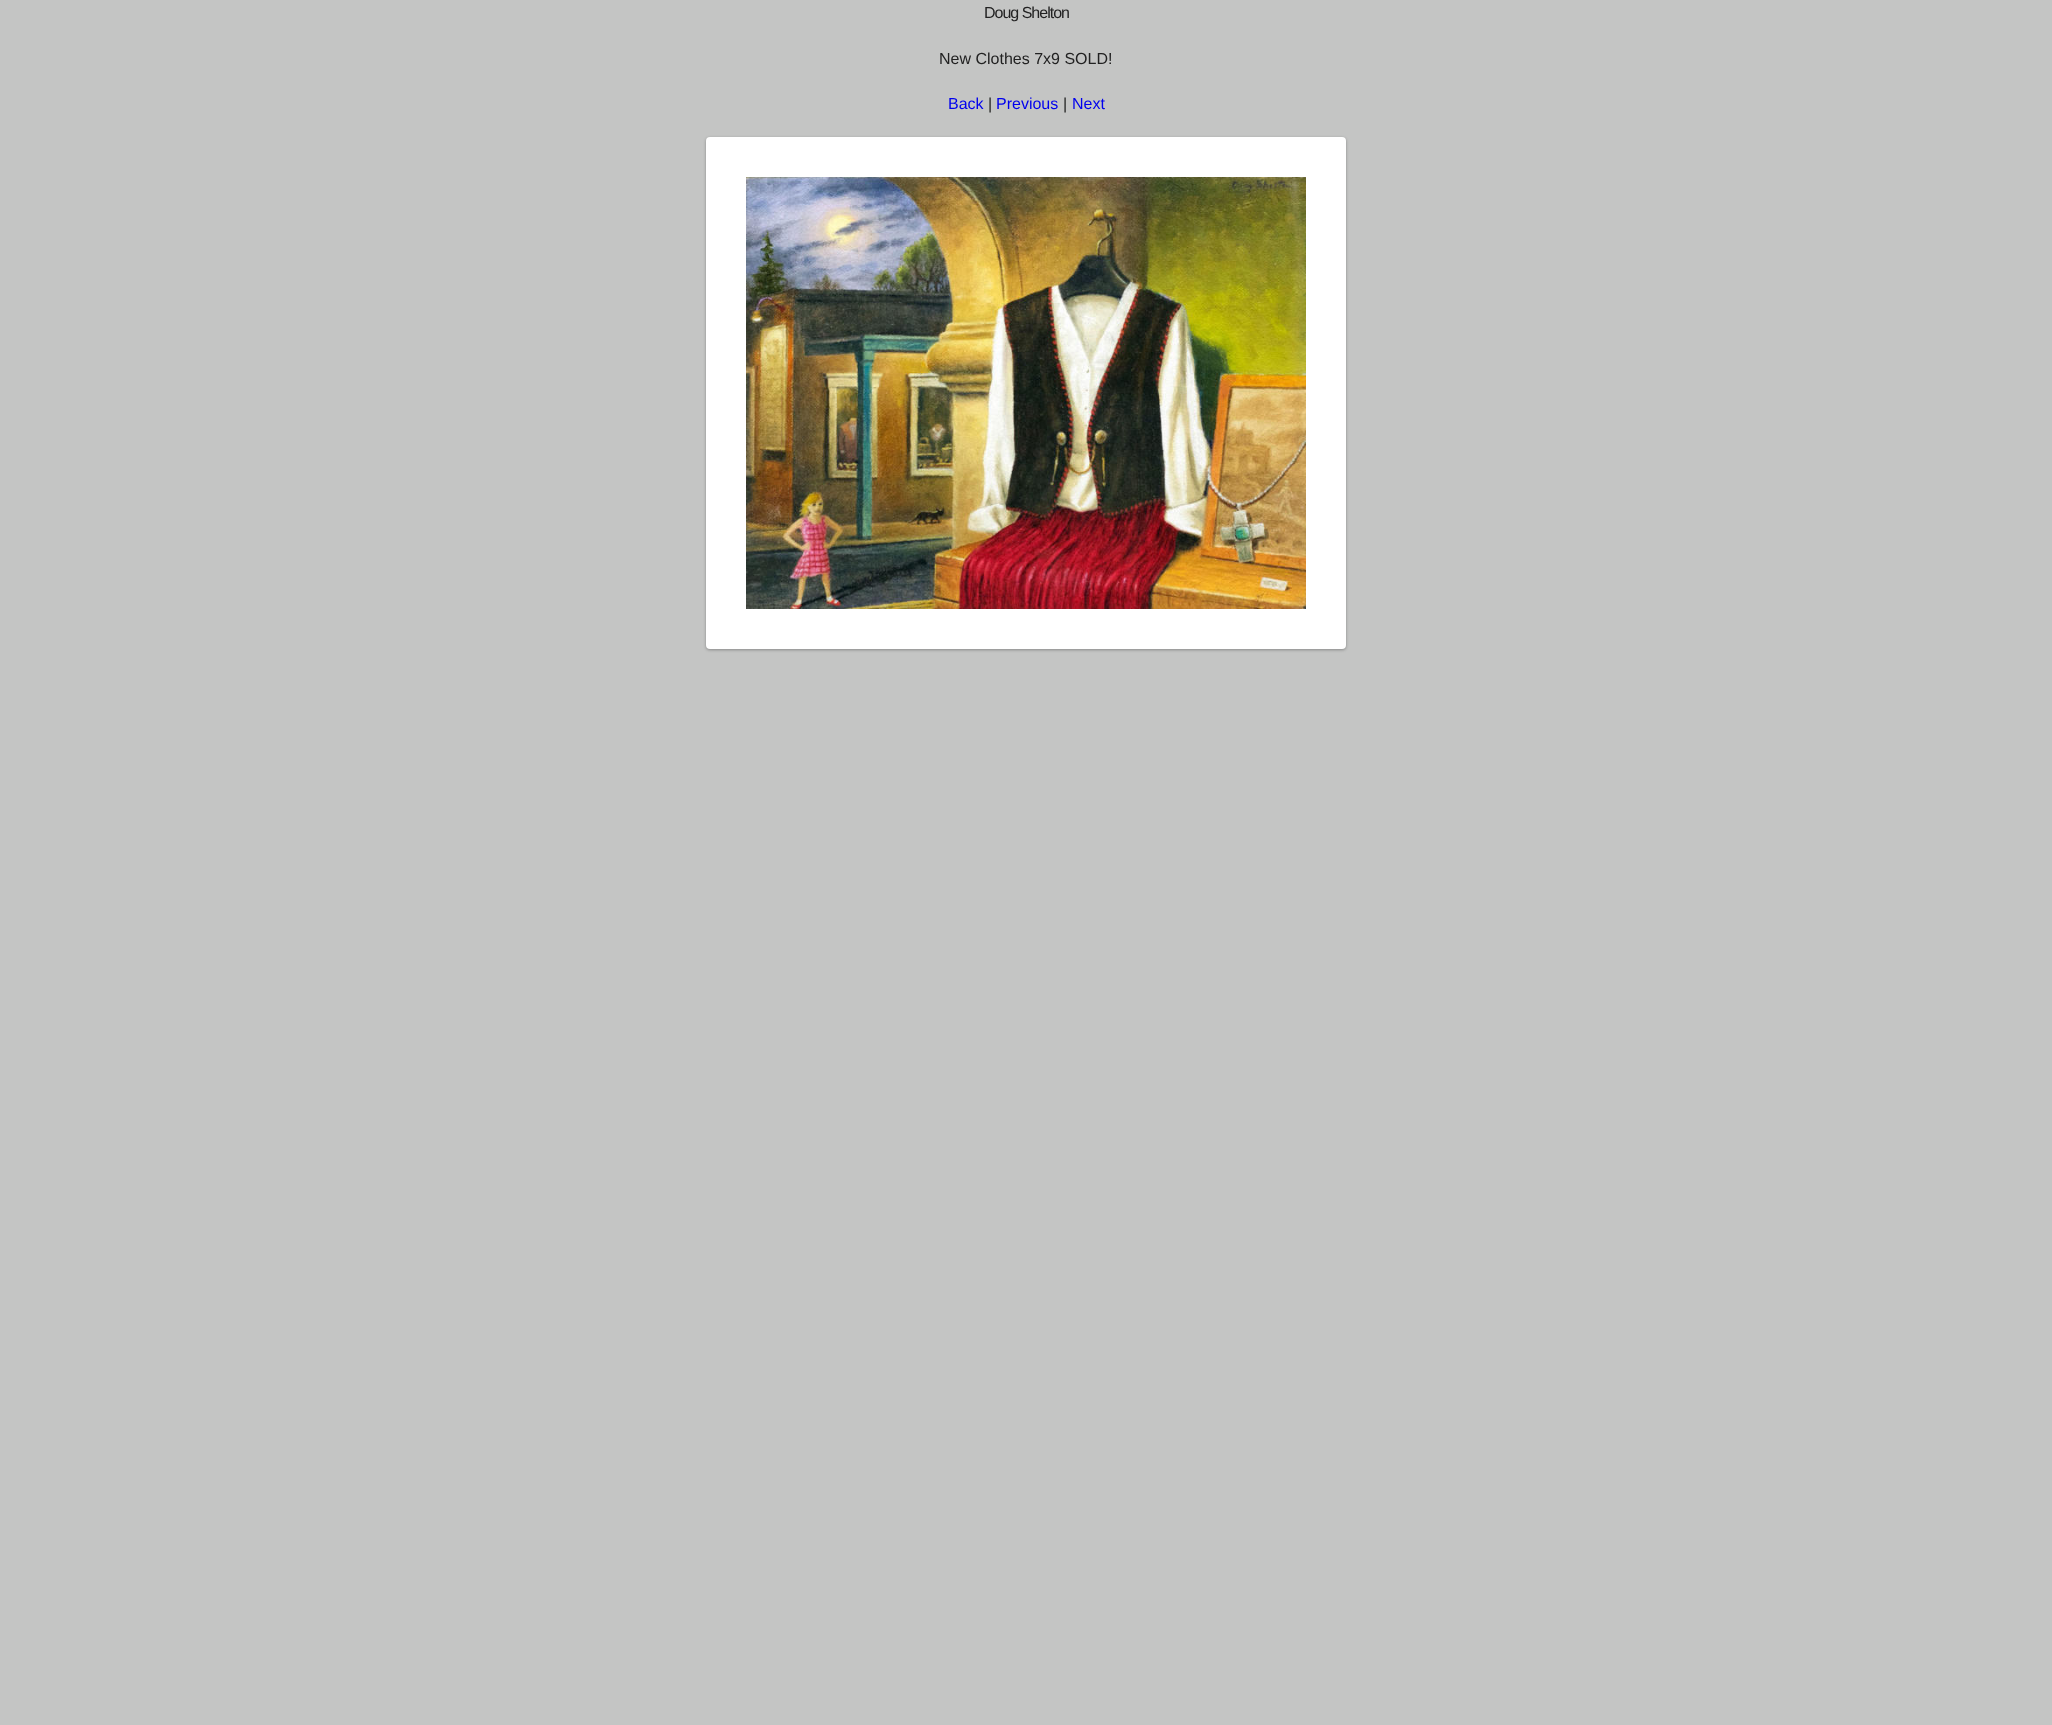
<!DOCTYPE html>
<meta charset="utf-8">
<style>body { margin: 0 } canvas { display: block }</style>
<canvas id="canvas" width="2052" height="1725"></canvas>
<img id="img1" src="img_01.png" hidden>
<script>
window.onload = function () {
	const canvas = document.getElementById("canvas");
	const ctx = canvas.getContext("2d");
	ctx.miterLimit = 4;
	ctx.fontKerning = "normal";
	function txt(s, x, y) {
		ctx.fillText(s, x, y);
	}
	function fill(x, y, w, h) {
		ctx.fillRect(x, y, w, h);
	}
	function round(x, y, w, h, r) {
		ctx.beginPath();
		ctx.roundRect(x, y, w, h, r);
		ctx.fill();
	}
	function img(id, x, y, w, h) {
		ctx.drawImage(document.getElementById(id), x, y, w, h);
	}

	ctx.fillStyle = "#C4C5C4";
	fill(0, 0, 2052, 1725);
	ctx.fillStyle = "rgba(0, 0, 0, 0.3)";
	ctx.filter = "blur(1.5px)";
	ctx.beginPath();
	ctx.roundRect(706, 138, 640, 512, 4);
	ctx.fill();
	ctx.filter = "none";
	ctx.fillStyle = "#FFFFFF";
	round(706, 137, 640, 512, 4);
	img("img1", 746, 177, 560, 432);
	ctx.letterSpacing = "-1px";
	ctx.font = "16px Liberation Sans";
	ctx.fillStyle = "#222222";
	txt("Doug Shelton", 984, 18);
	ctx.letterSpacing = "0px";
	txt("New Clothes 7x9 SOLD!", 939, 64);
	ctx.fillStyle = "#0000EE";
	txt("Back", 948, 109);
	ctx.fillStyle = "#222222";
	txt("|", 988, 109);
	ctx.fillStyle = "#0000EE";
	txt("Previous", 996, 109);
	ctx.fillStyle = "#222222";
	txt("|", 1063, 109);
	ctx.fillStyle = "#0000EE";
	txt("Next", 1072, 109);
};
</script>
